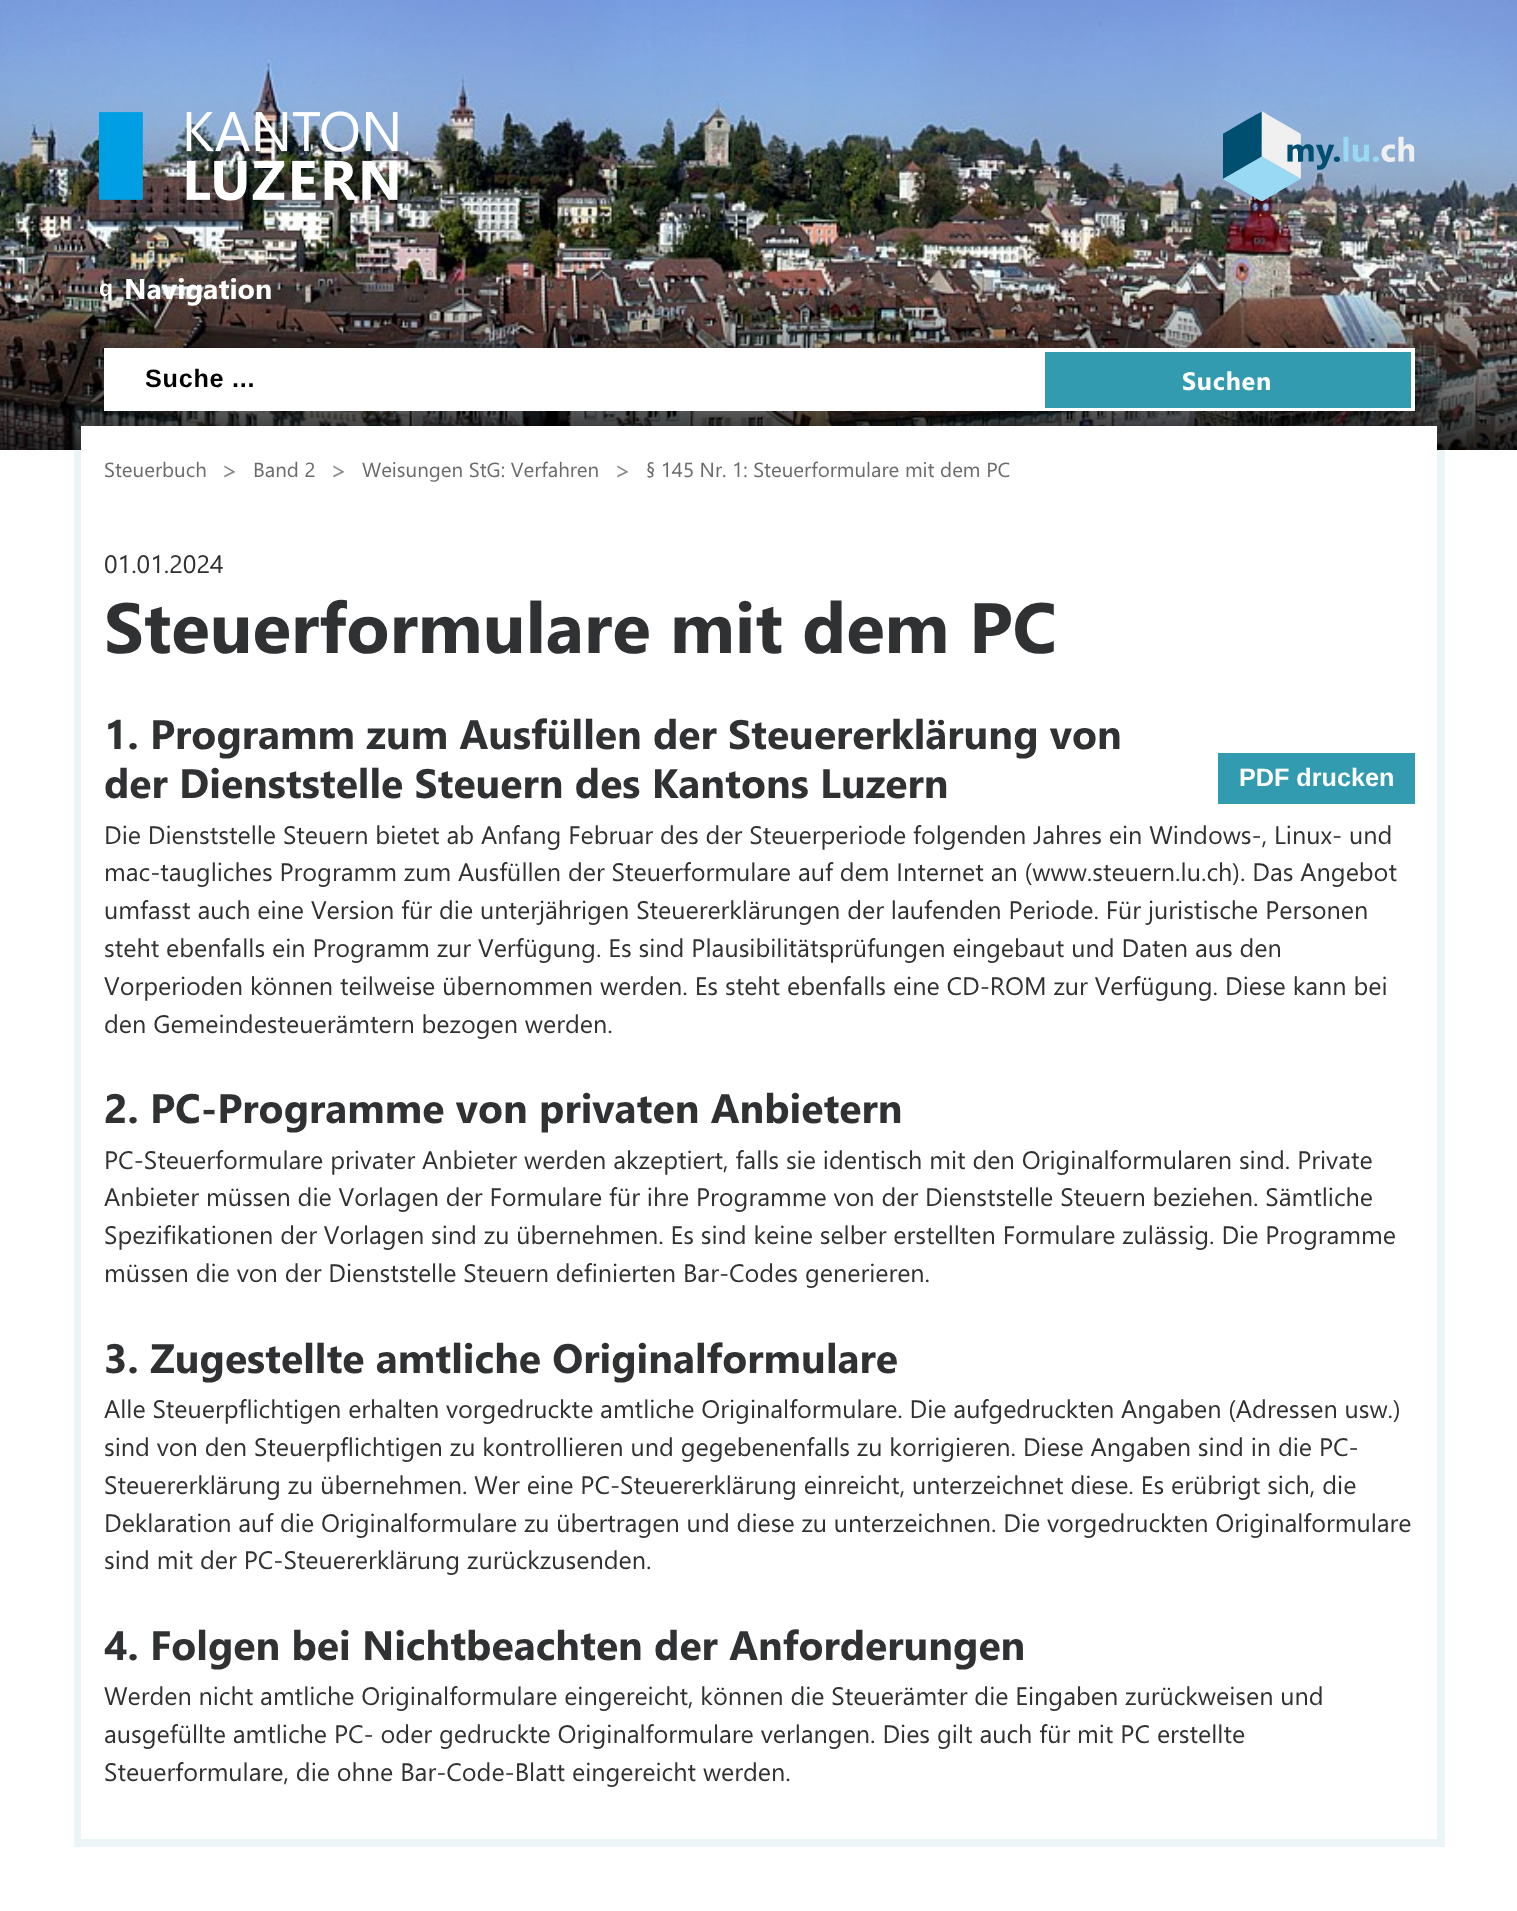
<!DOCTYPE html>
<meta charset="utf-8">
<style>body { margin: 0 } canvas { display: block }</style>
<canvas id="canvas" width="1517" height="1911"></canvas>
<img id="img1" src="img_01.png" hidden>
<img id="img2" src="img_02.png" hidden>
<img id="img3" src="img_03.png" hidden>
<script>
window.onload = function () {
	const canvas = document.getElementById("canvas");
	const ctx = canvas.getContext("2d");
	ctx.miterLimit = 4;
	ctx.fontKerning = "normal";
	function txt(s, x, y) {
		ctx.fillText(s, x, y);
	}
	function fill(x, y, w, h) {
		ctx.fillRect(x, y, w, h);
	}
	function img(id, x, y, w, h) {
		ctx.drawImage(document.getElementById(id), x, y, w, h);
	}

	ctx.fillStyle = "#FFFFFF";
	fill(0, 0, 1517, 1911);
	img("img1", 0, 0, 1517, 450);
	img("img2", 99, 111, 299, 90);
	img("img3", 1223, 111, 192, 90);
	fill(104, 348, 1311, 63);
	ctx.fillStyle = "#339BAF";
	fill(1045, 352, 366, 56);
	ctx.fillStyle = "#FFFFFF";
	fill(81, 426, 1356, 24);
	ctx.fillStyle = "#EBF5F7";
	fill(81, 1839, 1356, 8);
	fill(74, 450, 7, 1397);
	fill(1437, 450, 8, 1397);
	ctx.fillStyle = "#339BAF";
	fill(1218, 753, 197, 51);
	ctx.font = "bold 23px Liberation Sans";
	ctx.fillStyle = "#FFFFFF";
	txt("q", 99, 296);
	ctx.font = "bold 28.5px Segoe UI";
	txt("Navigation", 124, 299);
	ctx.letterSpacing = "0.75px";
	ctx.font = "bold 25.2px Liberation Sans";
	ctx.fillStyle = "#000000";
	txt("Suche ...", 145, 387);
	ctx.font = "bold 25.2px Segoe UI";
	ctx.fillStyle = "#FFFFFF";
	txt("Suchen", 1182, 390);
	ctx.letterSpacing = "0px";
	ctx.font = "20.5px Segoe UI";
	ctx.fillStyle = "#6B6B6B";
	txt("Steuerbuch", 104, 477);
	ctx.font = "25.2px Segoe UI";
	ctx.fillStyle = "#898989";
	txt(">", 221, 479);
	ctx.font = "20.5px Segoe UI";
	ctx.fillStyle = "#6B6B6B";
	txt("Band 2", 253, 477);
	ctx.font = "25.2px Segoe UI";
	ctx.fillStyle = "#898989";
	txt(">", 330, 479);
	ctx.font = "20.5px Segoe UI";
	ctx.fillStyle = "#6B6B6B";
	txt("Weisungen StG: Verfahren", 362, 477);
	ctx.font = "25.2px Segoe UI";
	ctx.fillStyle = "#898989";
	txt(">", 614, 479);
	ctx.font = "20.5px Segoe UI";
	ctx.fillStyle = "#6B6B6B";
	txt("§ 145 Nr. 1: Steuerformulare mit dem PC", 646, 477);
	ctx.font = "25.2px Segoe UI";
	ctx.fillStyle = "#303133";
	txt("01.01.2024", 104, 573);
	ctx.font = "bold 70.9px Segoe UI";
	txt("Steuerformulare mit dem PC", 104, 653);
	ctx.font = "bold 40.95px Segoe UI";
	txt("1. Programm zum Ausfüllen der Steuererklärung von", 104, 749);
	txt("der Dienststelle Steuern des Kantons Luzern", 104, 798);
	ctx.font = "25.2px Segoe UI";
	txt("Die Dienststelle Steuern bietet ab Anfang Februar des der Steuerperiode folgenden Jahres ein Windows-, Linux- und", 104, 844);
	txt("mac-taugliches Programm zum Ausfüllen der Steuerformulare auf dem Internet an (www.steuern.lu.ch). Das Angebot", 104, 881);
	txt("umfasst auch eine Version für die unterjährigen Steuererklärungen der laufenden Periode. Für juristische Personen", 104, 919);
	txt("steht ebenfalls ein Programm zur Verfügung. Es sind Plausibilitätsprüfungen eingebaut und Daten aus den", 104, 957);
	txt("Vorperioden können teilweise übernommen werden. Es steht ebenfalls eine CD-ROM zur Verfügung. Diese kann bei", 104, 995);
	txt("den Gemeindesteuerämtern bezogen werden.", 104, 1033);
	ctx.font = "bold 40.95px Segoe UI";
	txt("2. PC-Programme von privaten Anbietern", 104, 1123);
	ctx.font = "25.2px Segoe UI";
	txt("PC-Steuerformulare privater Anbieter werden akzeptiert, falls sie identisch mit den Originalformularen sind. Private", 104, 1169);
	txt("Anbieter müssen die Vorlagen der Formulare für ihre Programme von der Dienststelle Steuern beziehen. Sämtliche", 104, 1206);
	txt("Spezifikationen der Vorlagen sind zu übernehmen. Es sind keine selber erstellten Formulare zulässig. Die Programme", 104, 1244);
	txt("müssen die von der Dienststelle Steuern definierten Bar-Codes generieren.", 104, 1282);
	ctx.font = "bold 40.95px Segoe UI";
	txt("3. Zugestellte amtliche Originalformulare", 104, 1373);
	ctx.wordSpacing = "-0.1px";
	ctx.font = "25.2px Segoe UI";
	txt("Alle Steuerpflichtigen erhalten vorgedruckte amtliche Originalformulare. Die aufgedruckten Angaben (Adressen usw.)", 104, 1418);
	ctx.wordSpacing = "0px";
	txt("sind von den Steuerpflichtigen zu kontrollieren und gegebenenfalls zu korrigieren. Diese Angaben sind in die PC-", 104, 1456);
	txt("Steuererklärung zu übernehmen. Wer eine PC-Steuererklärung einreicht, unterzeichnet diese. Es erübrigt sich, die", 104, 1494);
	ctx.wordSpacing = "-0.1px";
	txt("Deklaration auf die Originalformulare zu übertragen und diese zu unterzeichnen. Die vorgedruckten Originalformulare", 104, 1532);
	ctx.wordSpacing = "0px";
	txt("sind mit der PC-Steuererklärung zurückzusenden.", 104, 1569);
	ctx.font = "bold 40.95px Segoe UI";
	txt("4. Folgen bei Nichtbeachten der Anforderungen", 104, 1660);
	ctx.wordSpacing = "-0.1px";
	ctx.font = "25.2px Segoe UI";
	txt("Werden nicht amtliche Originalformulare eingereicht, können die Steuerämter die Eingaben zurückweisen und", 104, 1705);
	ctx.wordSpacing = "0px";
	txt("ausgefüllte amtliche PC- oder gedruckte Originalformulare verlangen. Dies gilt auch für mit PC erstellte", 104, 1743);
	txt("Steuerformulare, die ohne Bar-Code-Blatt eingereicht werden.", 104, 1781);
	ctx.font = "bold 25.2px Liberation Sans";
	ctx.fillStyle = "#FFFFFF";
	txt("PDF drucken", 1239, 786);
};
</script>
